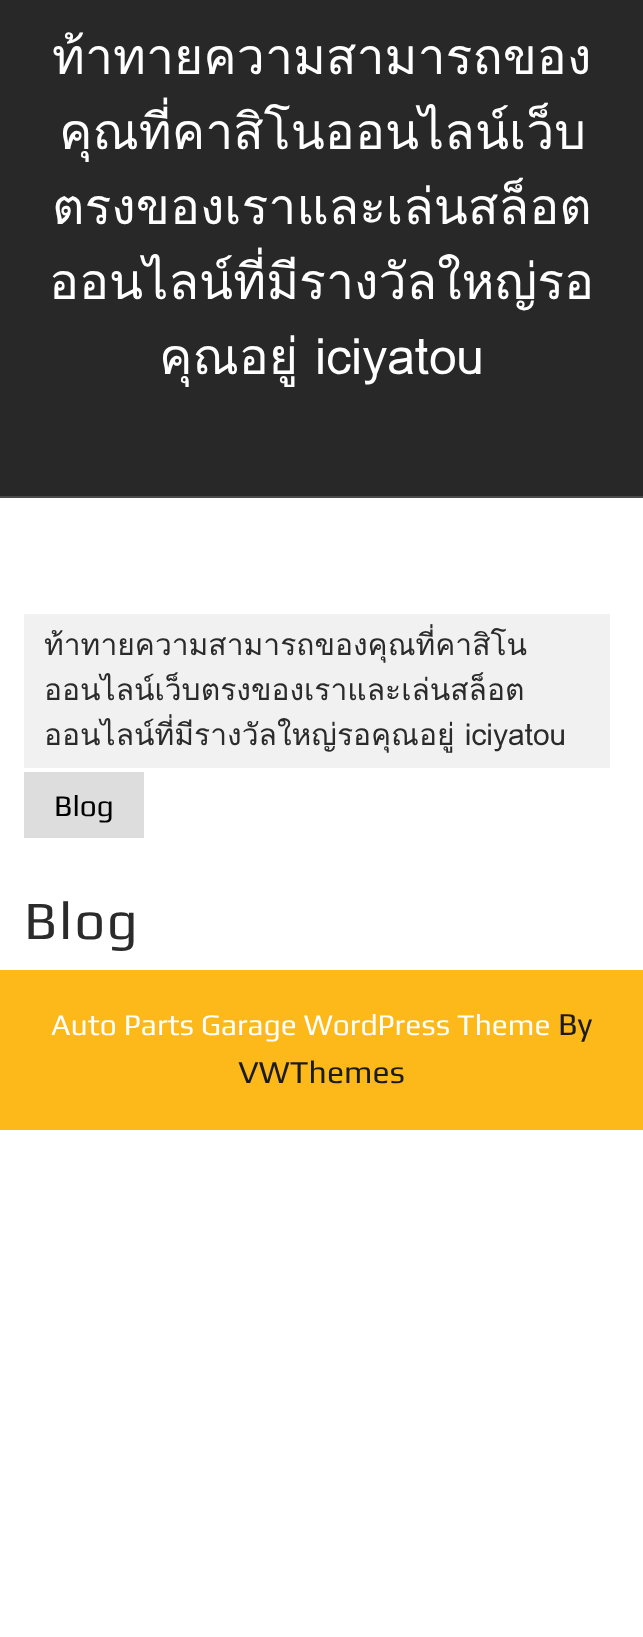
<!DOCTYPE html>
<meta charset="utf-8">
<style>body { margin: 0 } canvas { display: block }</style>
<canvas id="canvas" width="643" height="1637"></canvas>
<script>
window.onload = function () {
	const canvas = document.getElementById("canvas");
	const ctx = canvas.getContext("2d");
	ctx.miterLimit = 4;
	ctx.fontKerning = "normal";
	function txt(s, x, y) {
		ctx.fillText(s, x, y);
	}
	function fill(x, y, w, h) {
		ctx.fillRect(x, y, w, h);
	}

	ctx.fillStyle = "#FFFFFF";
	fill(0, 0, 643, 1637);
	ctx.fillStyle = "#282828";
	fill(0, 0, 643, 496);
	ctx.fillStyle = "#4A4A4A";
	fill(0, 496, 643, 2);
	ctx.fillStyle = "#F1F1F1";
	fill(24, 614, 586, 154);
	ctx.fillStyle = "#DDDDDD";
	fill(24, 772, 120, 66);
	ctx.fillStyle = "#FDB819";
	fill(0, 970, 643, 160);
	ctx.font = "50px Loma";
	ctx.fillStyle = "#FFFFFF";
	txt("ท้าทายความสามารถของ", 52, 74);
	txt("คุณที่คาสิโนออนไลน์เว็บ", 59, 149);
	txt("ตรงของเราและเล่นสล็อต", 52, 224);
	txt("ออนไลน์ที่มีรางวัลใหญ่รอ", 49, 299);
	txt("คุณอยู่ iciyatou", 159, 374);
	ctx.font = "30px Loma";
	ctx.fillStyle = "#2C2B2B";
	txt("ท้าทายความสามารถของคุณที่คาสิโน", 44, 655);
	txt("ออนไลน์เว็บตรงของเราและเล่นสล็อต", 44, 700);
	txt("ออนไลน์ที่มีรางวัลใหญ่รอคุณอยู่ iciyatou", 44, 745);
	ctx.font = "30px Play";
	ctx.fillStyle = "#000000";
	txt("Blog", 54, 816);
	ctx.letterSpacing = "2px";
	ctx.font = "54px Play";
	ctx.fillStyle = "#2C2B2B";
	txt("Blog", 24, 939);
	ctx.letterSpacing = "0px";
	ctx.font = "30px Play";
	ctx.fillStyle = "#FFFFFF";
	txt("Auto Parts Garage WordPress Theme", 51, 1035);
	ctx.font = "32px Play";
	ctx.fillStyle = "#1B1B1B";
	txt("By", 558, 1035);
	txt("VWThemes", 238, 1083);
};
</script>
